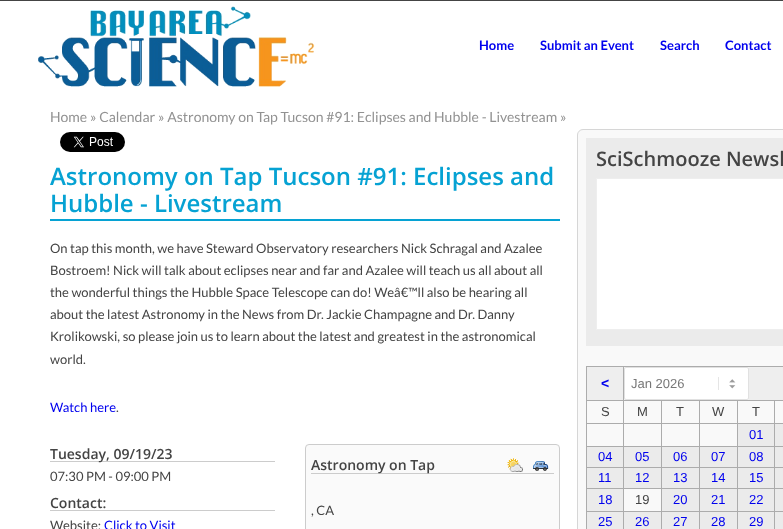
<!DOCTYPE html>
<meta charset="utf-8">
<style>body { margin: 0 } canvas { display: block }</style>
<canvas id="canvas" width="783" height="529"></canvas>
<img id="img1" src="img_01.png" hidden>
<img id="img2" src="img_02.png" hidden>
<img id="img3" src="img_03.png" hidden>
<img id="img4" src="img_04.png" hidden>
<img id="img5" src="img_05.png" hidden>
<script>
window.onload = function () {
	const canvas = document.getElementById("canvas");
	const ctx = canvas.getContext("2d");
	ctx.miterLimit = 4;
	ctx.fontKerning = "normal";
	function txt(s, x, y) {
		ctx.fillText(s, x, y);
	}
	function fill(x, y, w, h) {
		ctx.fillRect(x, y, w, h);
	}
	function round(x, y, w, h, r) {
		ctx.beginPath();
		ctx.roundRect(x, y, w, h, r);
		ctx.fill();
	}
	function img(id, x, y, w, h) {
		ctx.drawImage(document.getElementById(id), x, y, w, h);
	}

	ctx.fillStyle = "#FFFFFF";
	fill(0, 0, 783, 529);
	ctx.fillStyle = "#444444";
	fill(0, 0, 783, 1);
	img("img1", 38, 6, 277, 81);
	img("img2", 60, 132, 65, 20);
	ctx.fillStyle = "#06A2D3";
	fill(50, 219, 510, 2);
	ctx.fillStyle = "#CCCCCC";
	fill(50, 461, 225, 1);
	fill(50, 510, 225, 1);
	ctx.fillStyle = "#FAFAFA";
	ctx.beginPath();
	ctx.roundRect(305.5, 444.5, 254, 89, 3.5);
	ctx.fill();
	ctx.strokeStyle = "#CCCCCC";
	ctx.stroke();
	ctx.fillStyle = "#CCCCCC";
	fill(311, 473, 243, 1);
	img("img3", 507, 458, 16, 14);
	img("img4", 533, 461, 16, 10);
	ctx.fillStyle = "#F9F9F9";
	ctx.beginPath();
	ctx.roundRect(577.5, 129.5, 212, 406, 5.5);
	ctx.fill();
	ctx.strokeStyle = "#D6D6D6";
	ctx.stroke();
	ctx.fillStyle = "#EBEBEB";
	fill(586, 138, 197, 208);
	ctx.fillStyle = "#FFFFFF";
	ctx.beginPath();
	ctx.rect(596.5, 178.5, 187, 151);
	ctx.fill();
	ctx.strokeStyle = "#EEEEEE";
	ctx.stroke();
	ctx.fillStyle = "#EEEEEE";
	fill(587, 367, 36, 33);
	ctx.fillStyle = "#ACACAC";
	fill(623, 366, 160, 1);
	fill(774, 400, 9, 1);
	fill(774, 423, 9, 1);
	ctx.fillStyle = "#EBEBEB";
	fill(775, 424, 8, 105);
	ctx.fillStyle = "#ACACAC";
	fill(774, 446, 9, 1);
	fill(774, 467, 9, 1);
	fill(774, 488, 9, 1);
	fill(774, 511, 9, 1);
	fill(774, 511, 1, 18);
	fill(737, 511, 38, 1);
	fill(774, 488, 1, 24);
	fill(737, 488, 38, 1);
	fill(774, 467, 1, 22);
	fill(737, 467, 38, 1);
	fill(774, 446, 1, 22);
	fill(737, 446, 38, 1);
	fill(774, 423, 1, 24);
	fill(737, 423, 38, 1);
	fill(774, 400, 1, 24);
	fill(737, 400, 38, 1);
	fill(737, 511, 1, 18);
	fill(699, 511, 39, 1);
	fill(737, 488, 1, 24);
	fill(699, 488, 39, 1);
	fill(737, 467, 1, 22);
	fill(699, 467, 39, 1);
	fill(737, 446, 1, 22);
	fill(699, 446, 39, 1);
	fill(737, 423, 1, 24);
	fill(699, 423, 39, 1);
	fill(737, 400, 1, 24);
	fill(699, 400, 39, 1);
	fill(699, 511, 1, 18);
	fill(661, 511, 39, 1);
	fill(699, 488, 1, 24);
	fill(661, 488, 39, 1);
	fill(699, 467, 1, 22);
	fill(661, 467, 39, 1);
	fill(699, 446, 1, 22);
	fill(661, 446, 39, 1);
	fill(699, 423, 1, 24);
	fill(661, 423, 39, 1);
	fill(699, 400, 1, 24);
	fill(661, 400, 39, 1);
	fill(661, 511, 1, 18);
	fill(623, 511, 39, 1);
	fill(661, 488, 1, 24);
	fill(623, 488, 39, 1);
	fill(661, 467, 1, 22);
	fill(623, 467, 39, 1);
	fill(661, 446, 1, 22);
	fill(623, 446, 39, 1);
	fill(661, 423, 1, 24);
	fill(623, 423, 39, 1);
	fill(661, 400, 1, 24);
	fill(623, 400, 39, 1);
	fill(623, 511, 1, 18);
	fill(586, 511, 38, 1);
	fill(623, 488, 1, 24);
	fill(586, 488, 38, 1);
	fill(623, 467, 1, 22);
	fill(586, 467, 38, 1);
	fill(623, 446, 1, 22);
	fill(586, 446, 38, 1);
	fill(623, 423, 1, 24);
	fill(586, 423, 38, 1);
	fill(623, 400, 1, 24);
	fill(586, 400, 38, 1);
	fill(623, 366, 1, 35);
	fill(586, 366, 38, 1);
	fill(586, 511, 1, 18);
	fill(586, 488, 1, 24);
	fill(586, 467, 1, 22);
	fill(586, 446, 1, 22);
	fill(586, 423, 1, 24);
	fill(586, 400, 1, 24);
	fill(586, 366, 1, 35);
	ctx.fillStyle = "#EEEEEE";
	fill(624, 367, 159, 33);
	ctx.fillStyle = "#FFFFFF";
	round(624, 367, 125, 33, 2);
	img("img5", 718, 377, 18, 13);
	ctx.beginPath();
	ctx.roundRect(624.5, 367.5, 124, 32, 1.5);
	ctx.strokeStyle = "#E1E1E1";
	ctx.stroke();
	ctx.fillStyle = "#EBEBEB";
	fill(738, 424, 36, 22);
	fill(587, 447, 36, 20);
	fill(624, 447, 37, 20);
	fill(662, 447, 37, 20);
	fill(700, 447, 37, 20);
	fill(738, 447, 36, 20);
	fill(587, 468, 36, 20);
	fill(624, 468, 37, 20);
	fill(662, 468, 37, 20);
	fill(700, 468, 37, 20);
	fill(738, 468, 36, 20);
	fill(587, 489, 36, 22);
	fill(662, 489, 37, 22);
	fill(700, 489, 37, 22);
	fill(738, 489, 36, 22);
	fill(587, 512, 36, 17);
	fill(624, 512, 37, 17);
	fill(662, 512, 37, 17);
	fill(700, 512, 37, 17);
	fill(738, 512, 36, 17);
	ctx.font = "bold 13px Lato";
	ctx.fillStyle = "#0000EE";
	txt("Home", 479, 50);
	txt("Submit an Event", 540, 50);
	txt("Search", 660, 50);
	txt("Contact", 725, 50);
	ctx.font = "14px Lato";
	ctx.fillStyle = "#929292";
	txt("Home", 50, 122);
	txt("» Calendar", 90, 122);
	txt("» Astronomy on Tap Tucson #91: Eclipses and Hubble - Livestream", 158, 122);
	txt("»", 560, 122);
	ctx.font = "600 24px Open Sans";
	ctx.fillStyle = "#06A2D3";
	txt("Astronomy on Tap Tucson #91: Eclipses and", 50, 185);
	txt("Hubble - Livestream", 50, 212);
	ctx.font = "13px Lato";
	ctx.fillStyle = "#444444";
	txt("On tap this month, we have Steward Observatory researchers Nick Schragal and Azalee", 50, 253);
	txt("Bostroem! Nick will talk about eclipses near and far and Azalee will teach us all about all", 50, 275);
	txt("the wonderful things the Hubble Space Telescope can do! Weâ€™ll also be hearing all", 50, 297);
	txt("about the latest Astronomy in the News from Dr. Jackie Champagne and Dr. Danny", 50, 319);
	txt("Krolikowski, so please join us to learn about the latest and greatest in the astronomical", 50, 341);
	txt("world.", 50, 364);
	ctx.fillStyle = "#0000EE";
	txt("Watch here", 50, 412);
	ctx.fillStyle = "#444444";
	txt(".", 116, 412);
	ctx.font = "600 14px Open Sans";
	txt("Tuesday, 09/19/23", 50, 459);
	ctx.font = "13px Lato";
	txt("07:30 PM - 09:00 PM", 50, 481);
	ctx.font = "600 14px Open Sans";
	txt("Contact:", 50, 508);
	ctx.font = "13px Lato";
	txt("Website:", 50, 530);
	ctx.fillStyle = "#0000EE";
	txt("Click to Visit", 104, 530);
	ctx.font = "600 14px Open Sans";
	ctx.fillStyle = "#444444";
	txt("Astronomy on Tap", 311, 470);
	ctx.font = "13px Lato";
	txt(", CA", 311, 515);
	ctx.font = "600 20px Open Sans";
	txt("SciSchmooze Newsl", 596, 166);
	ctx.font = "bold 14px Liberation Sans";
	ctx.fillStyle = "#0000EE";
	txt("<", 601, 388);
	ctx.font = "13px Liberation Sans";
	ctx.fillStyle = "#777777";
	txt("Jan 2026", 631, 388);
	ctx.fillStyle = "#444444";
	txt("S", 601, 416);
	txt("M", 637, 416);
	txt("T", 676, 416);
	txt("W", 712, 416);
	txt("T", 752, 416);
	ctx.fillStyle = "#0000EE";
	txt("01", 749, 439);
	txt("04", 598, 461);
	txt("05", 635, 461);
	txt("06", 673, 461);
	txt("07", 711, 461);
	txt("08", 749, 461);
	txt("11", 598, 482);
	txt("12", 635, 482);
	txt("13", 673, 482);
	txt("14", 711, 482);
	txt("15", 749, 482);
	txt("18", 598, 504);
	ctx.fillStyle = "#444444";
	txt("19", 635, 504);
	ctx.fillStyle = "#0000EE";
	txt("20", 673, 504);
	txt("21", 711, 504);
	txt("22", 749, 504);
	txt("25", 598, 526);
	txt("26", 635, 526);
	txt("27", 673, 526);
	txt("28", 711, 526);
	txt("29", 749, 526);
};
</script>
